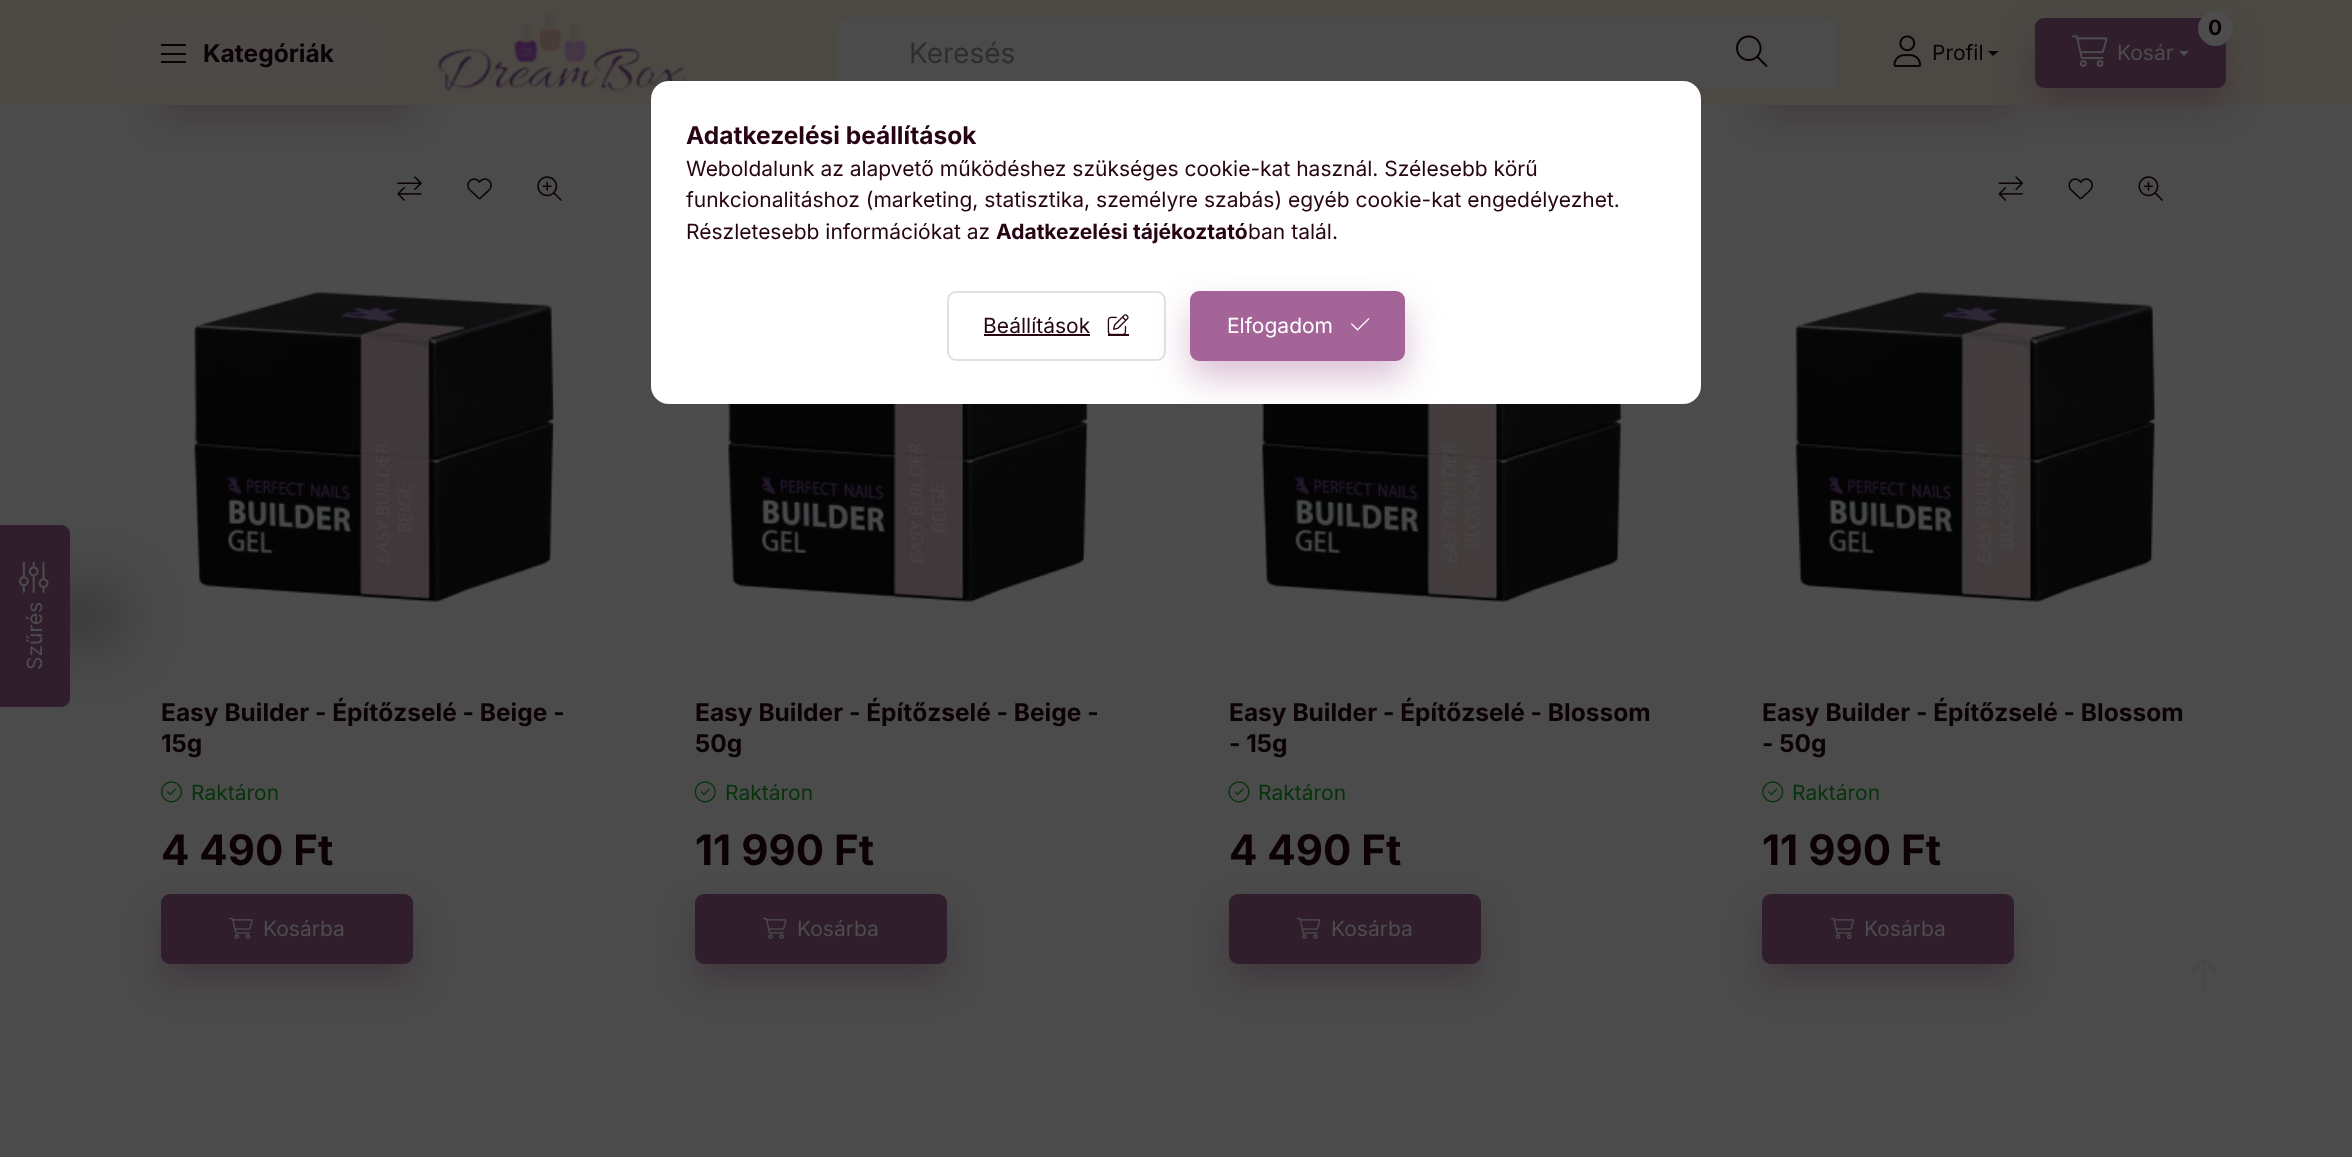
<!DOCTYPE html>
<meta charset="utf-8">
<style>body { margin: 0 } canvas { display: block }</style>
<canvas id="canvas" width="2352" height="1157"></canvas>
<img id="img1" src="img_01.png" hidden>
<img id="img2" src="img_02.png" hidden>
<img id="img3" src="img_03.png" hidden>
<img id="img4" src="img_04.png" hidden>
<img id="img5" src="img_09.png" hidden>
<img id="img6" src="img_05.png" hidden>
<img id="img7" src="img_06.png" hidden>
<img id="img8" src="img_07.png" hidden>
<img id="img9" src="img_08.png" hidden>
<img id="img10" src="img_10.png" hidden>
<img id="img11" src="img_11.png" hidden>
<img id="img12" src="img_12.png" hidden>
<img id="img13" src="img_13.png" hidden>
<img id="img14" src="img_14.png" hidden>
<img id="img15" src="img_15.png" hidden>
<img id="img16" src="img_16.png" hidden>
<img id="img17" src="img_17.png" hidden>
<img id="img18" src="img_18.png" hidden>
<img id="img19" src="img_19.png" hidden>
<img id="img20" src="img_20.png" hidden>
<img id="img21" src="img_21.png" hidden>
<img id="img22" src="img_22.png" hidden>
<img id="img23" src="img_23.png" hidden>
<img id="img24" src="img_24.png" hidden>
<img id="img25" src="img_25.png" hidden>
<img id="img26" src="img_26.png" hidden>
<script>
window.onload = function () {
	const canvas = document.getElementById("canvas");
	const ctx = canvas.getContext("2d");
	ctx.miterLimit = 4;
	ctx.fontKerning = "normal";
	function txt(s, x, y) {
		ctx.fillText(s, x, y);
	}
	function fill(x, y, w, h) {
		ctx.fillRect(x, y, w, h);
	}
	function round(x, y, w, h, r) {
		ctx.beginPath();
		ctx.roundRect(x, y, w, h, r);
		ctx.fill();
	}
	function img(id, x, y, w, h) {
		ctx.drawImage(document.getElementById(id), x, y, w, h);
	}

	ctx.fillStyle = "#4B4B4B";
	fill(0, 0, 2352, 1157);
	ctx.fillStyle = "rgba(49, 30, 45, 0.4)";
	ctx.filter = "blur(17.5px)";
	ctx.beginPath();
	ctx.roundRect(161, 46, 252, 70, 9);
	ctx.fill();
	ctx.filter = "none";
	ctx.filter = "blur(17.5px)";
	ctx.beginPath();
	ctx.roundRect(1762, 46, 252, 70, 9);
	ctx.fill();
	ctx.filter = "none";
	ctx.fillStyle = "#4C4944";
	fill(0, 0, 2352, 105);
	ctx.fillStyle = "#4C4A47";
	round(126, 19, 243, 69, 9);
	ctx.fillStyle = "#0B0106";
	fill(161, 44, 25, 2);
	fill(161, 53, 25, 2);
	fill(161, 61, 25, 2);
	img("img1", 437, 12, 251, 84);
	ctx.fillStyle = "#4B4B4B";
	round(838, 18, 1000, 70, 9);
	img("img2", 1736, 35, 32, 32);
	img("img3", 1893, 35, 29, 32);
	ctx.fillStyle = "rgba(49, 30, 45, 0.4)";
	ctx.filter = "blur(17.5px)";
	ctx.beginPath();
	ctx.roundRect(2035, 35, 191, 70, 9);
	ctx.fill();
	ctx.filter = "none";
	ctx.fillStyle = "#0B0106";
	ctx.beginPath();
	ctx.moveTo(1988, 51);
	ctx.lineTo(1998.5, 51);
	ctx.lineTo(1993, 56);
	ctx.closePath();
	ctx.fill();
	ctx.fillStyle = "#311E2D";
	round(2035, 18, 191, 70, 9);
	ctx.fillStyle = "#4D4D4D";
	ctx.beginPath();
	ctx.arc(2215.5, 28.5, 17.5, 0, Math.PI * 2);
	ctx.fill();
	img("img4", 2072, 35, 36, 32);
	ctx.beginPath();
	ctx.moveTo(2179, 51);
	ctx.lineTo(2189, 51);
	ctx.lineTo(2184, 56);
	ctx.closePath();
	ctx.fill();
	img("img5", 186, 285, 370, 319);
	ctx.fillStyle = "rgba(0, 0, 0, 0.2)";
	ctx.filter = "blur(26px)";
	ctx.beginPath();
	ctx.roundRect(-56, 581, 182, 70, 9);
	ctx.fill();
	ctx.filter = "none";
	ctx.fillStyle = "#311E2D";
	ctx.beginPath();
	ctx.moveTo(0, 707);
	ctx.lineTo(0, 525);
	ctx.lineTo(61, 525);
	ctx.bezierCurveTo(66, 525, 70, 529, 70, 534);
	ctx.lineTo(70, 698);
	ctx.bezierCurveTo(70, 703, 66, 707, 61, 707);
	ctx.closePath();
	ctx.fill();
	img("img6", 18, 561, 31, 32);
	img("img7", 397, 176, 25, 25);
	img("img8", 467, 178, 25, 22);
	img("img9", 537, 176, 25, 25);
	img("img10", 161, 781, 21, 22);
	ctx.fillStyle = "rgba(49, 30, 45, 0.4)";
	ctx.filter = "blur(17.5px)";
	ctx.beginPath();
	ctx.roundRect(161, 912, 252, 70, 9);
	ctx.fill();
	ctx.filter = "none";
	ctx.fillStyle = "#311E2D";
	round(161, 894, 252, 70, 9);
	img("img11", 229, 917, 24, 22);
	img("img12", 719, 404, 371, 200);
	img("img13", 694, 781, 22, 22);
	ctx.fillStyle = "rgba(49, 30, 45, 0.4)";
	ctx.filter = "blur(17.5px)";
	ctx.beginPath();
	ctx.roundRect(695, 912, 252, 70, 9);
	ctx.fill();
	ctx.filter = "none";
	ctx.fillStyle = "#311E2D";
	round(695, 894, 252, 70, 9);
	img("img14", 763, 917, 24, 22);
	img("img15", 1253, 404, 370, 199);
	img("img16", 1228, 781, 22, 22);
	ctx.fillStyle = "rgba(49, 30, 45, 0.4)";
	ctx.filter = "blur(17.5px)";
	ctx.beginPath();
	ctx.roundRect(1229, 912, 252, 70, 9);
	ctx.fill();
	ctx.filter = "none";
	ctx.fillStyle = "#311E2D";
	round(1229, 894, 252, 70, 9);
	img("img17", 1296, 917, 25, 22);
	img("img18", 1998, 176, 25, 25);
	img("img19", 2068, 178, 25, 22);
	img("img20", 2138, 176, 25, 25);
	img("img21", 1787, 286, 373, 317);
	img("img22", 1762, 781, 22, 22);
	ctx.fillStyle = "rgba(49, 30, 45, 0.4)";
	ctx.filter = "blur(17.5px)";
	ctx.beginPath();
	ctx.roundRect(1762, 912, 252, 70, 9);
	ctx.fill();
	ctx.filter = "none";
	ctx.fillStyle = "#311E2D";
	round(1762, 894, 252, 70, 9);
	img("img23", 1830, 917, 24, 22);
	ctx.fillStyle = "#FFFFFF";
	round(651, 81, 1050, 323, 18);
	ctx.beginPath();
	ctx.roundRect(948, 292, 217, 68, 8);
	ctx.strokeStyle = "#E1E1E1";
	ctx.lineWidth = 2;
	ctx.stroke();
	ctx.fillStyle = "#260413";
	fill(984, 334, 106, 2);
	img("img24", 1107, 314, 22, 20);
	fill(1108, 334, 21, 2);
	ctx.save();
	ctx.beginPath();
	ctx.roundRect(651, 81, 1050, 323, 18);
	ctx.clip();
	ctx.fillStyle = "rgba(164, 100, 151, 0.4)";
	ctx.filter = "blur(17.5px)";
	ctx.beginPath();
	ctx.roundRect(1190, 308, 215, 70, 9);
	ctx.fill();
	ctx.filter = "none";
	ctx.restore();
	ctx.fillStyle = "#A46497";
	ctx.beginPath();
	ctx.roundRect(1191, 292, 213, 68, 8);
	ctx.fill();
	ctx.strokeStyle = "#A46497";
	ctx.stroke();
	img("img25", 1351, 318, 19, 13);
	img("img26", 2191, 958, 26, 31);
	ctx.font = "bold 24.5px Inter";
	ctx.fillStyle = "#0B0106";
	txt("Kategóriák", 203, 62);
	ctx.font = "28px Inter";
	ctx.fillStyle = "#2E2E2E";
	txt("Keresés", 909, 63);
	ctx.font = "21px Inter";
	ctx.fillStyle = "#0B0106";
	txt("Profil", 1932, 60);
	ctx.font = "bold 21px Inter";
	txt("0", 2208, 35);
	ctx.font = "21px Inter";
	ctx.fillStyle = "#4D4D4D";
	txt("Kosár", 2117, 60);
	ctx.save();
	ctx.translate(42, 670);
	ctx.rotate(-90 * Math.PI / 180);
	ctx.fillText("Szűrés", 0, 0);
	ctx.restore();
	ctx.font = "bold 24.5px Inter";
	ctx.fillStyle = "#0B0106";
	txt("Easy Builder - Építőzselé - Beige -", 161, 721);
	txt("15g", 161, 752);
	ctx.font = "21px Inter";
	ctx.fillStyle = "#05340A";
	txt("Raktáron", 191, 800);
	ctx.font = "bold 42px Inter";
	ctx.fillStyle = "#0B0106";
	txt("4 490 Ft", 161, 865);
	ctx.font = "21px Inter";
	ctx.fillStyle = "#4D4D4D";
	txt("Kosárba", 263, 936);
	ctx.font = "bold 24.5px Inter";
	ctx.fillStyle = "#0B0106";
	txt("Easy Builder - Építőzselé - Beige -", 695, 721);
	txt("50g", 695, 752);
	ctx.font = "21px Inter";
	ctx.fillStyle = "#05340A";
	txt("Raktáron", 725, 800);
	ctx.font = "bold 42px Inter";
	ctx.fillStyle = "#0B0106";
	txt("11 990 Ft", 695, 865);
	ctx.font = "21px Inter";
	ctx.fillStyle = "#4D4D4D";
	txt("Kosárba", 797, 936);
	ctx.font = "bold 24.5px Inter";
	ctx.fillStyle = "#0B0106";
	txt("Easy Builder - Építőzselé - Blossom", 1229, 721);
	txt("- 15g", 1229, 752);
	ctx.font = "21px Inter";
	ctx.fillStyle = "#05340A";
	txt("Raktáron", 1258, 800);
	ctx.font = "bold 42px Inter";
	ctx.fillStyle = "#0B0106";
	txt("4 490 Ft", 1229, 865);
	ctx.font = "21px Inter";
	ctx.fillStyle = "#4D4D4D";
	txt("Kosárba", 1331, 936);
	ctx.font = "bold 24.5px Inter";
	ctx.fillStyle = "#0B0106";
	txt("Easy Builder - Építőzselé - Blossom", 1762, 721);
	txt("- 50g", 1762, 752);
	ctx.font = "21px Inter";
	ctx.fillStyle = "#05340A";
	txt("Raktáron", 1792, 800);
	ctx.font = "bold 42px Inter";
	ctx.fillStyle = "#0B0106";
	txt("11 990 Ft", 1762, 865);
	ctx.font = "21px Inter";
	ctx.fillStyle = "#4D4D4D";
	txt("Kosárba", 1864, 936);
	ctx.font = "bold 24.5px Inter";
	ctx.fillStyle = "#260413";
	txt("Adatkezelési beállítások", 686, 144);
	ctx.font = "21px Inter";
	txt("Weboldalunk az alapvető működéshez szükséges cookie-kat használ. Szélesebb körű", 686, 176);
	txt("funkcionalitáshoz (marketing, statisztika, személyre szabás) egyéb cookie-kat engedélyezhet.", 686, 207);
	txt("Részletesebb információkat az", 686, 239);
	ctx.font = "bold 21px Inter";
	txt("Adatkezelési tájékoztató", 996, 239);
	ctx.font = "21px Inter";
	txt("ban talál.", 1248, 239);
	txt("Beállítások", 983, 333);
	ctx.fillStyle = "#FFFFFF";
	txt("Elfogadom", 1227, 333);
};
</script>
